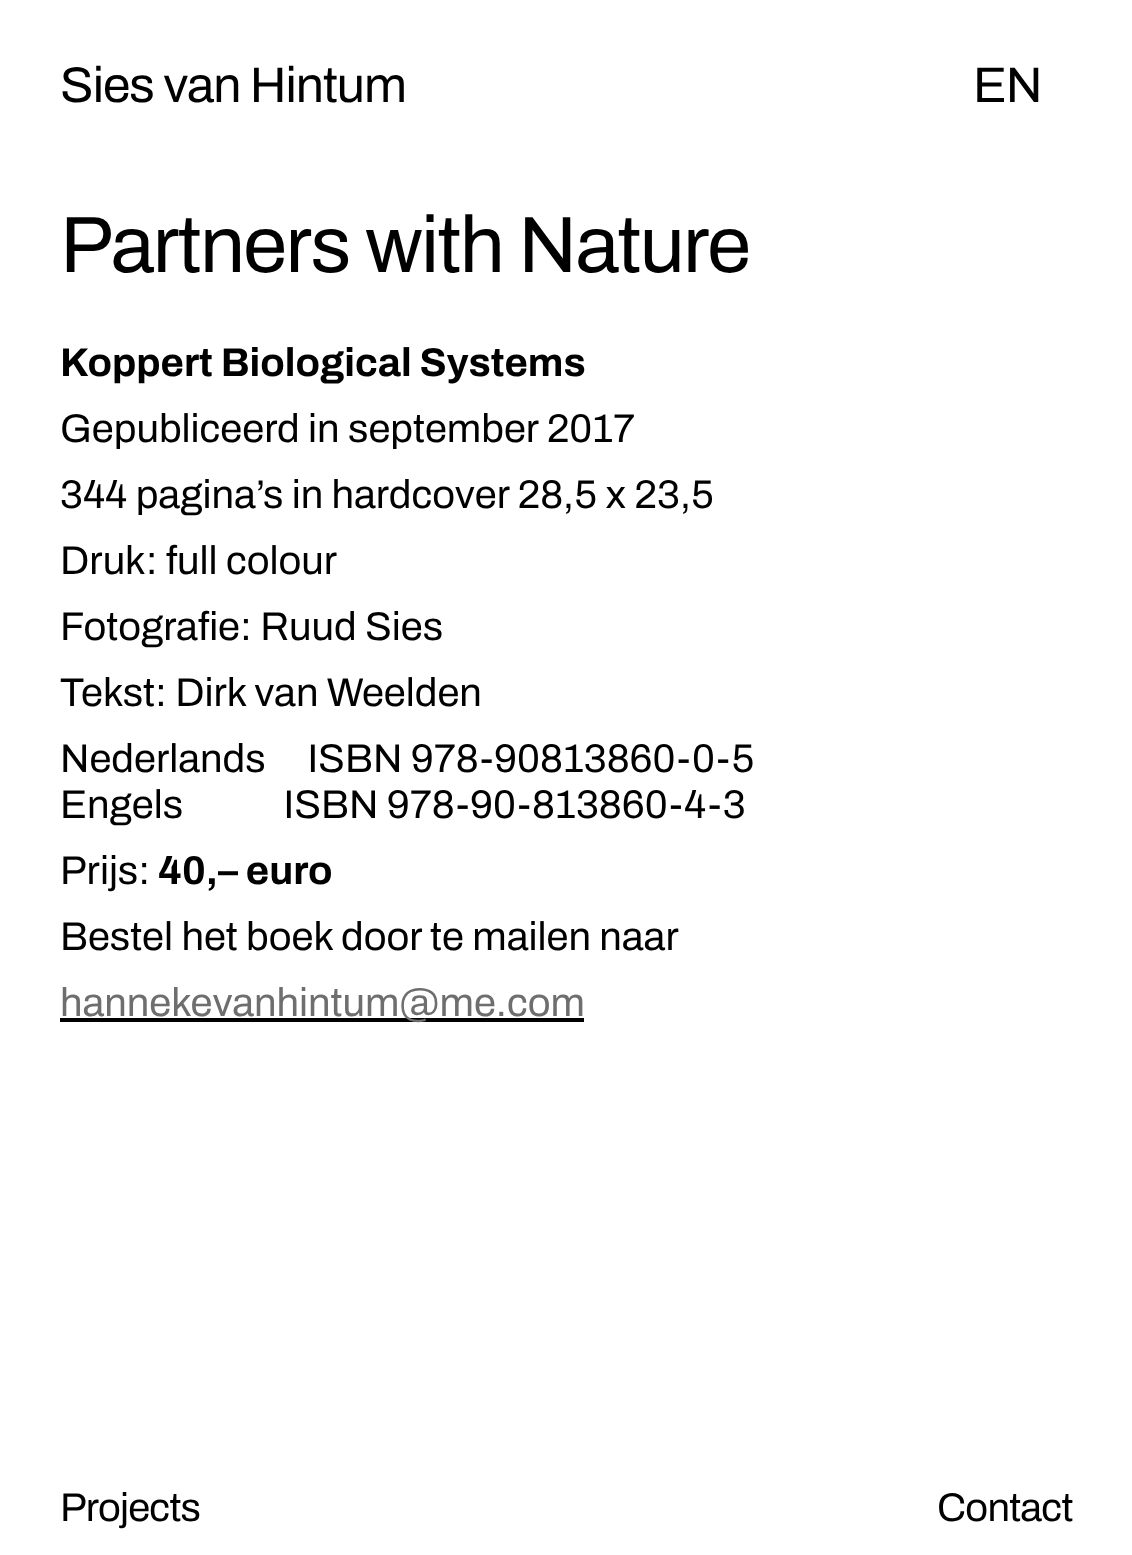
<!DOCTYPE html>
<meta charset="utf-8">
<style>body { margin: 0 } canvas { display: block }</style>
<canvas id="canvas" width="1132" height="1555"></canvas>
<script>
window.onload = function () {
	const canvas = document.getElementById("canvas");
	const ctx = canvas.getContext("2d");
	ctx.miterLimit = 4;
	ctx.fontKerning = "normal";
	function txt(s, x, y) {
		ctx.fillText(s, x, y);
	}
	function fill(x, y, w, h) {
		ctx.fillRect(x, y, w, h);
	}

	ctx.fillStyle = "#FFFFFF";
	fill(0, 0, 1132, 1555);
	ctx.fillStyle = "#000000";
	fill(60, 1018, 524, 4);
	ctx.letterSpacing = "-1px";
	ctx.font = "50px Archivo";
	txt("Sies van Hintum", 60, 102);
	txt("EN", 973, 102);
	ctx.letterSpacing = "-1.6px";
	ctx.font = "80px Archivo";
	txt("Partners with Nature", 60, 272);
	ctx.letterSpacing = "0px";
	ctx.font = "bold 40px Archivo";
	txt("Koppert Biological Systems", 60, 376);
	ctx.font = "40px Archivo";
	txt("Gepubliceerd in september 2017", 60, 442);
	txt("344 pagina’s in hardcover 28,5 x 23,5", 60, 508);
	txt("Druk: full colour", 60, 574);
	txt("Fotografie: Ruud Sies", 60, 640);
	txt("Tekst: Dirk van Weelden", 60, 706);
	txt("Nederlands     ISBN 978-90813860-0-5", 60, 772);
	txt("Engels            ISBN 978-90-813860-4-3", 60, 818);
	txt("Prijs:", 60, 884);
	ctx.font = "bold 40px Archivo";
	txt("40,– euro", 158, 884);
	ctx.font = "40px Archivo";
	txt("Bestel het boek door te mailen naar", 60, 950);
	ctx.fillStyle = "#6E6E6E";
	txt("hannekevanhintum@me.com", 60, 1016);
	ctx.letterSpacing = "-0.75px";
	ctx.fillStyle = "#000000";
	txt("Projects", 60, 1521);
	txt("Contact", 937, 1521);
};
</script>
